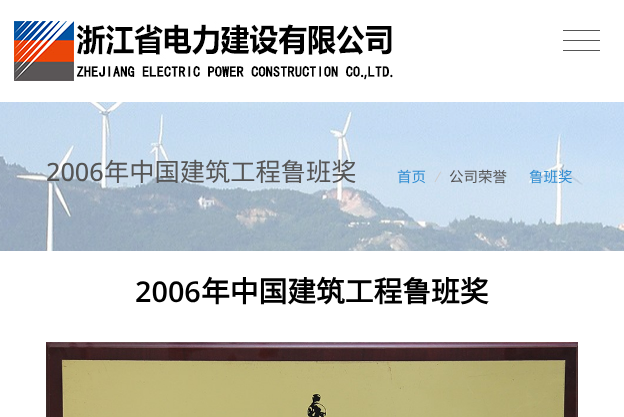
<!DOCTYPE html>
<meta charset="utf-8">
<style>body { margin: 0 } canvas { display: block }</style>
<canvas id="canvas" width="624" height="417"></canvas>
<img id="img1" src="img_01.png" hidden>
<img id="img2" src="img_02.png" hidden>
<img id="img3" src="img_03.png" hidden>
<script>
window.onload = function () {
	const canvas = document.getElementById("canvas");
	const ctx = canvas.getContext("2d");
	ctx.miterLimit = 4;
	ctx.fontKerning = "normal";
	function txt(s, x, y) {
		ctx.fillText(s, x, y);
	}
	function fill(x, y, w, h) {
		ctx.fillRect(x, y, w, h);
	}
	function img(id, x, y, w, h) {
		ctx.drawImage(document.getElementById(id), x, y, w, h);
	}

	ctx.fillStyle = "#FFFFFF";
	fill(0, 0, 624, 417);
	img("img1", 14, 21, 379, 60);
	ctx.fillStyle = "#555555";
	fill(563, 30, 37, 1);
	fill(563, 40, 37, 1);
	fill(563, 50, 37, 1);
	img("img2", 0, 102, 624, 149);
	img("img3", 46, 342, 532, 75);
	ctx.font = "500 25.25px Open Sans";
	txt("2006", 46, 181);
	ctx.font = "25.25px Noto Sans CJK SC";
	txt("年中国建筑工程鲁班奖", 104, 181);
	ctx.font = "14.5px Noto Sans CJK SC";
	ctx.fillStyle = "#328ED2";
	txt("首页", 397, 182);
	ctx.font = "italic 14.5px Open Sans";
	ctx.fillStyle = "#CCCCCC";
	txt("/", 435, 182);
	ctx.font = "14.5px Noto Sans CJK SC";
	ctx.fillStyle = "#555555";
	txt("公司荣誉", 449, 182);
	ctx.fillStyle = "#328ED2";
	txt("鲁班奖", 529, 182);
	ctx.font = "600 28.75px Open Sans";
	ctx.fillStyle = "#000000";
	txt("2006", 135, 302);
	ctx.font = "bold 28.75px Noto Sans CJK SC";
	txt("年中国建筑工程鲁班奖", 201, 302);
};
</script>
